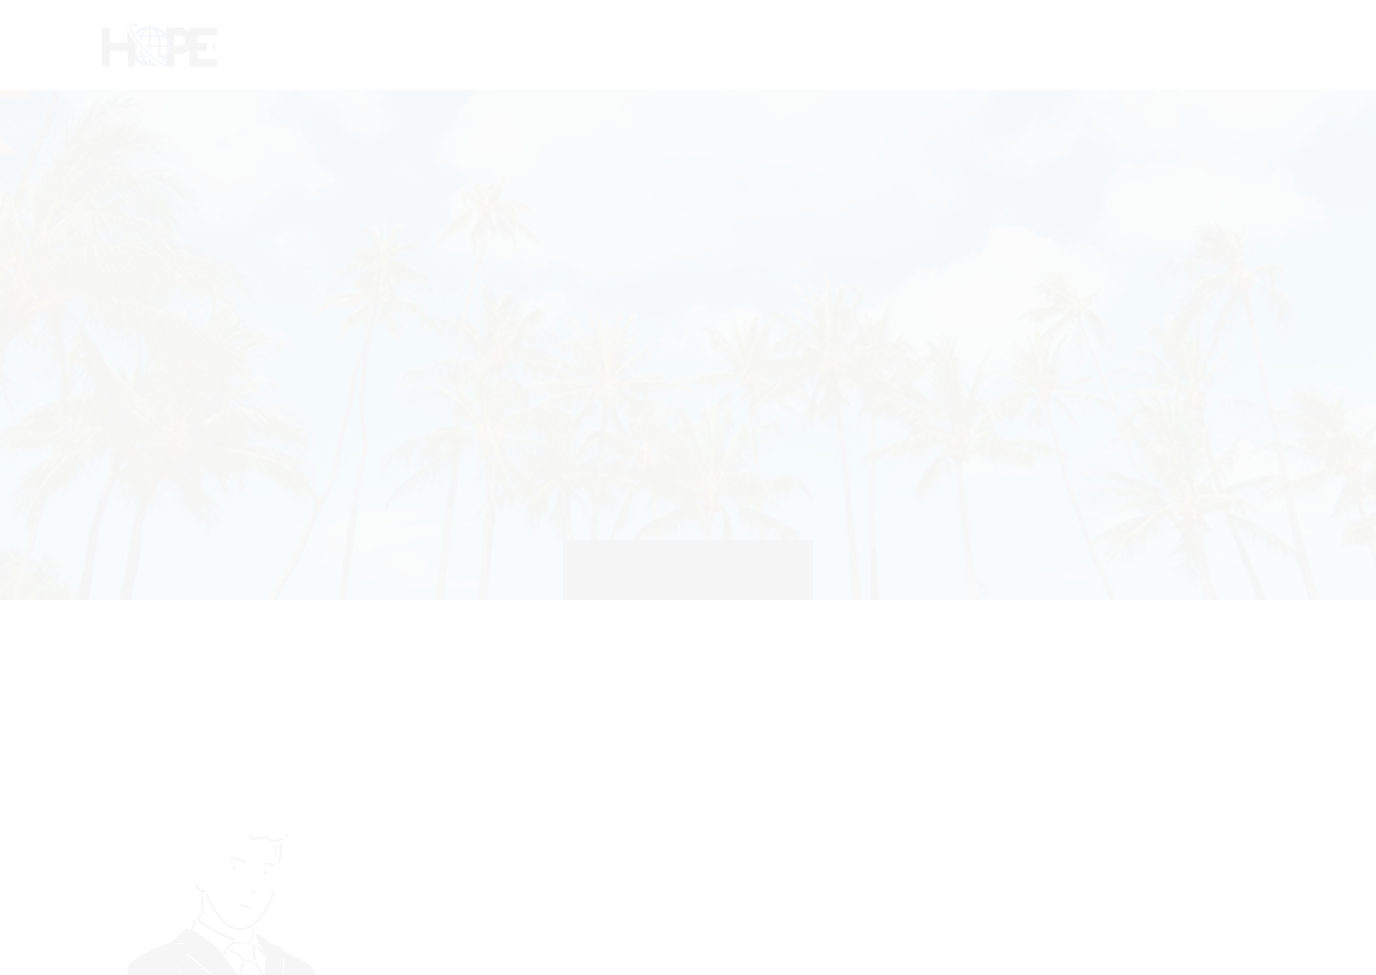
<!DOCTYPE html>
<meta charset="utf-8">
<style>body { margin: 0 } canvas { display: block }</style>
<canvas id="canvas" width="1376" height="975"></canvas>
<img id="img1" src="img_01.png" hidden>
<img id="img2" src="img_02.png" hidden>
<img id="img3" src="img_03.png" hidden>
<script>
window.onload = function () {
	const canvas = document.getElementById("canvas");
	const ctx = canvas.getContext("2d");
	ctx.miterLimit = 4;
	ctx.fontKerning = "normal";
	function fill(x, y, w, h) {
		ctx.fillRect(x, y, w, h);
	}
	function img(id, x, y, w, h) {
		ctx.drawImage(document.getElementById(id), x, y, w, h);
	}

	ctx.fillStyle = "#FFFFFF";
	fill(0, 0, 1376, 975);
	img("img1", 101, 22, 120, 45);
	img("img2", 0, 90, 1376, 510);
	ctx.fillStyle = "#F5F5F5";
	fill(563, 540, 250, 60);
	img("img3", 98, 834, 295, 141);
	ctx.save();
	ctx.beginPath();
	ctx.rect(98, 834, 160, 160);
	ctx.clip();
	ctx.fillStyle = "#FFFFFF";
	ctx.beginPath();
	ctx.moveTo(98, 833);
	ctx.lineTo(248, 833);
	ctx.lineTo(173, 908);
	ctx.closePath();
	ctx.fill();
	ctx.restore();
};
</script>
